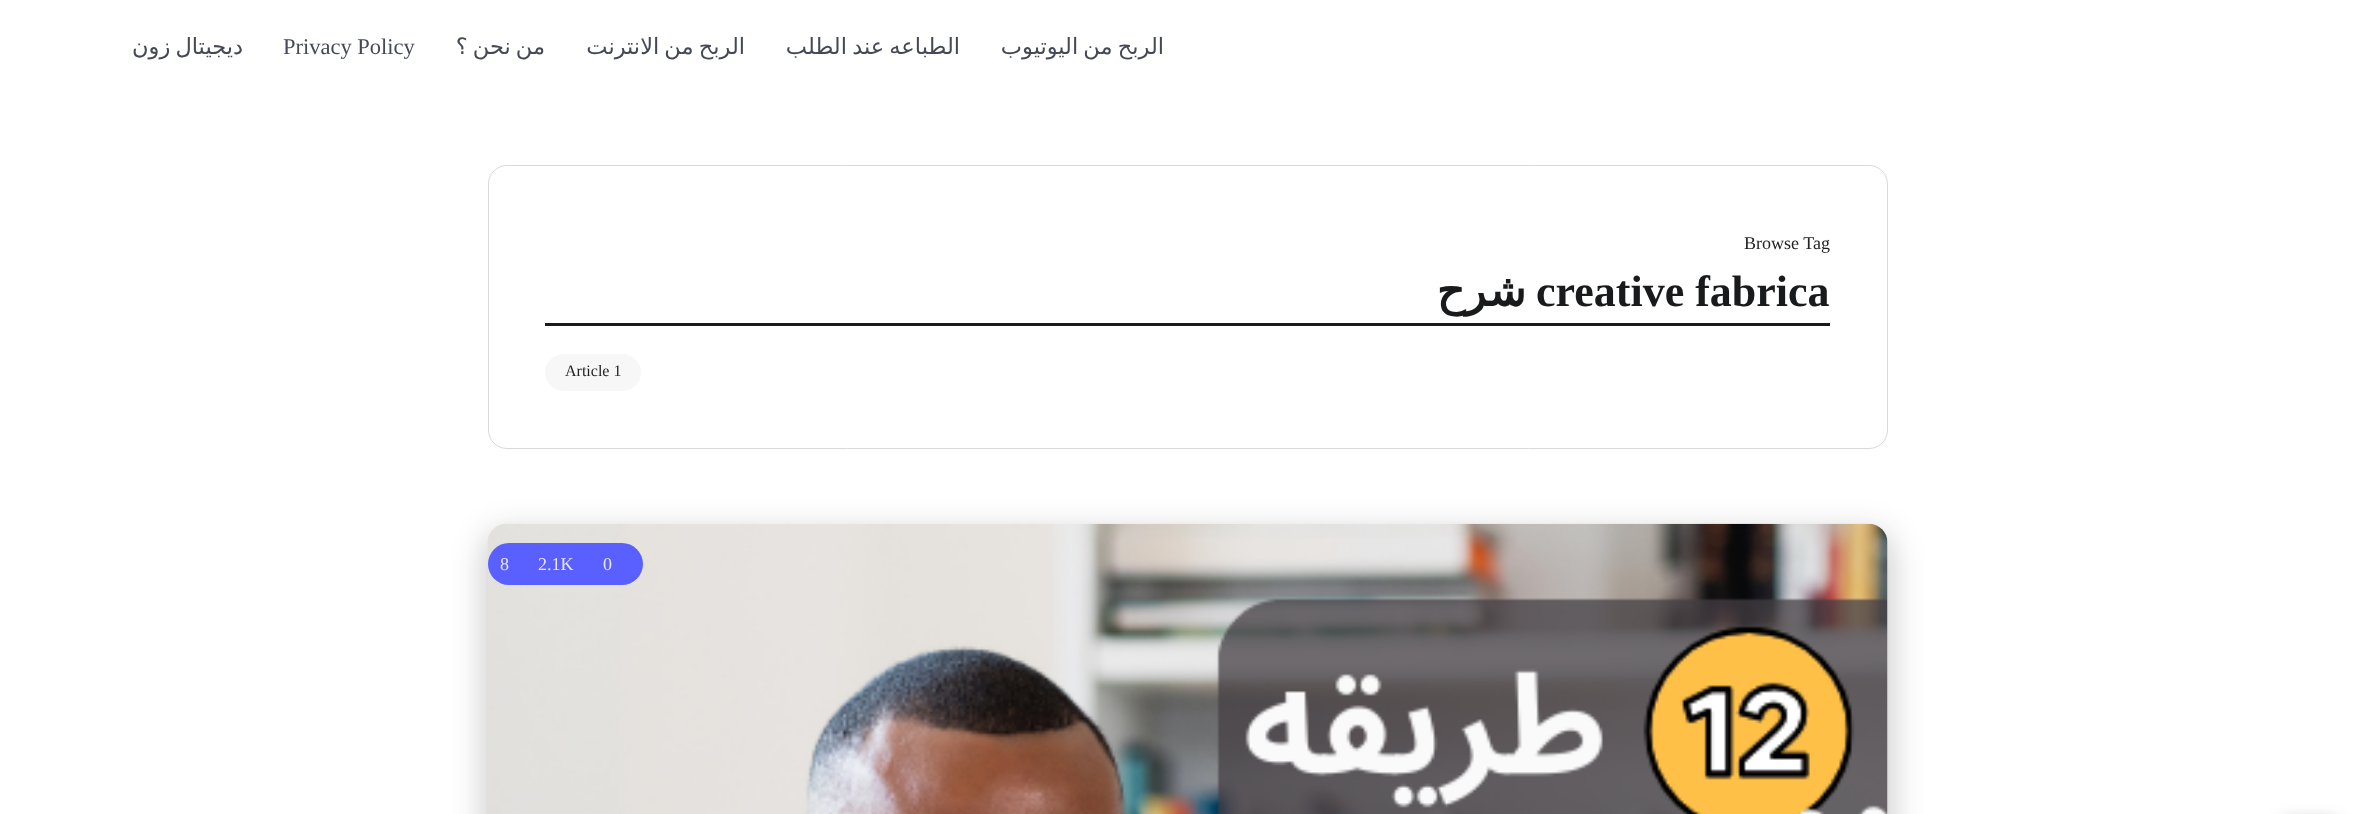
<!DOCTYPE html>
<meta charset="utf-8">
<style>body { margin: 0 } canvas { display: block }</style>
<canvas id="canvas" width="2374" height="814"></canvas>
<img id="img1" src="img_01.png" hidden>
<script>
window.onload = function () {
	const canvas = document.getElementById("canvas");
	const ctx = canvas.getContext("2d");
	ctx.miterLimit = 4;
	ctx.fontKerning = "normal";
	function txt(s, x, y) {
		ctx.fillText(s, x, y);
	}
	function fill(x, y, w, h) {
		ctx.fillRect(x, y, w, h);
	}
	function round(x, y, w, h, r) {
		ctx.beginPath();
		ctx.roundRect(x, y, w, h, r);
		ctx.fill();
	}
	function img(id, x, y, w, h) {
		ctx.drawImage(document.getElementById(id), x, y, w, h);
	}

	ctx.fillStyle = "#FFFFFF";
	fill(0, 0, 2374, 814);
	ctx.beginPath();
	ctx.roundRect(488.5, 165.5, 1399, 283, 18.5);
	ctx.strokeStyle = "#D9D9DA";
	ctx.stroke();
	ctx.fillStyle = "#191A1B";
	fill(545, 323, 1285, 3);
	ctx.fillStyle = "#F7F7F7";
	round(545, 354, 96, 37, 18.5);
	ctx.fillStyle = "rgba(23, 25, 32, 0.21)";
	ctx.filter = "blur(15.5px)";
	ctx.beginPath();
	ctx.roundRect(483, 531, 1410, 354, 24);
	ctx.fill();
	ctx.filter = "none";
	img("img1", 487, 523, 1401, 291);
	ctx.fillStyle = "#5960FF";
	round(488, 543, 155, 42, 21);
	ctx.fillStyle = "rgba(40, 41, 47, 0.24)";
	ctx.filter = "blur(7.5px)";
	ctx.beginPath();
	ctx.roundRect(2281, 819, 57, 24, 6);
	ctx.fill();
	ctx.filter = "none";
	ctx.wordSpacing = "-2px";
	ctx.direction = "rtl";
	ctx.font = "22.5px DejaVu Sans";
	ctx.fillStyle = "#454955";
	txt("الربح من اليوتيوب", 1164, 54);
	txt("الطباعه عند الطلب", 960, 54);
	txt("الربح من الانترنت", 745, 54);
	txt("من نحن ؟", 545, 54);
	ctx.wordSpacing = "0px";
	ctx.direction = "ltr";
	ctx.font = "22.5px Liberation Serif";
	txt("Privacy Policy", 283, 54);
	ctx.wordSpacing = "-2px";
	ctx.direction = "rtl";
	ctx.font = "22.5px DejaVu Sans";
	txt("ديجيتال زون", 243, 54);
	ctx.wordSpacing = "0px";
	ctx.direction = "ltr";
	ctx.font = "18px Liberation Serif";
	ctx.fillStyle = "#222222";
	txt("Browse Tag", 1744, 249);
	ctx.font = "bold 44px Liberation Serif";
	ctx.fillStyle = "#191A1B";
	txt("creative fabrica", 1536, 306);
	ctx.direction = "rtl";
	ctx.font = "bold 44px DejaVu Sans";
	txt("شرح", 1526, 306);
	ctx.direction = "ltr";
	ctx.font = "16px Liberation Serif";
	ctx.fillStyle = "#222222";
	txt("Article 1", 565, 376);
	ctx.font = "18px Liberation Serif";
	ctx.fillStyle = "#E7E7EF";
	txt("0", 603, 570);
	txt("2.1K", 538, 570);
	txt("8", 500, 570);
};
</script>
